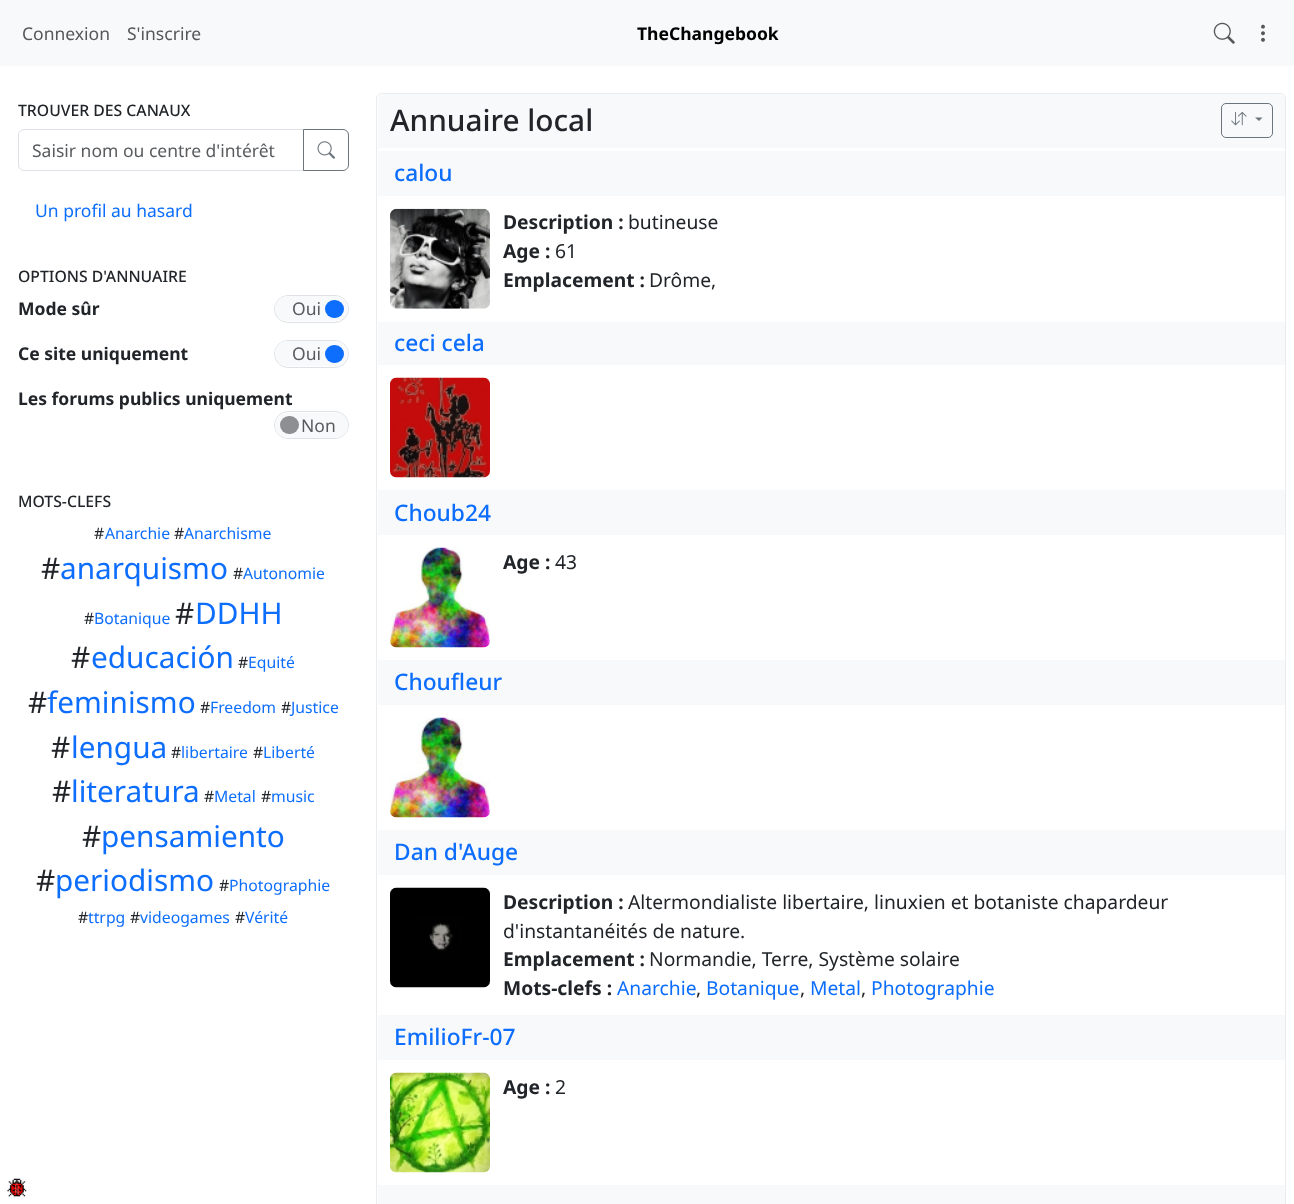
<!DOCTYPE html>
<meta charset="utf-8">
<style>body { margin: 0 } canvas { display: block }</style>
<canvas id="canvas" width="1294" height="1204"></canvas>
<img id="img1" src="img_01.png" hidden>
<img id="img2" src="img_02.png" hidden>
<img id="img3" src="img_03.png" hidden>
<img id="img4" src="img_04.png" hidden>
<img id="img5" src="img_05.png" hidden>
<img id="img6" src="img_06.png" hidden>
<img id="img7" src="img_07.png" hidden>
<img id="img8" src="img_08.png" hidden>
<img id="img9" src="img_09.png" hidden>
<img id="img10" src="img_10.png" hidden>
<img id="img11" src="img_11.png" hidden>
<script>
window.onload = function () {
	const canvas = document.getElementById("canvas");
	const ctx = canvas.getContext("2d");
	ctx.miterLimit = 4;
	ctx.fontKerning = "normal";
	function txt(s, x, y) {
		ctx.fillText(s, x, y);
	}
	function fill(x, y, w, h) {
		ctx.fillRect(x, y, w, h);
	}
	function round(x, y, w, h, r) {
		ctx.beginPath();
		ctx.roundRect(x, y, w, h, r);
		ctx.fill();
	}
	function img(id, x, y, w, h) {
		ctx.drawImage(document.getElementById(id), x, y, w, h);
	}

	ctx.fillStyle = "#FFFFFF";
	fill(0, 0, 1294, 1204);
	ctx.fillStyle = "#F8F9FA";
	fill(0, 0, 1294, 66);
	img("img1", 1213, 22, 22, 22);
	img("img2", 1261, 24, 4, 18);
	ctx.beginPath();
	ctx.roundRect(18.5, 129.5, 285, 41, [5.5, 0, 0, 5.5]);
	ctx.strokeStyle = "#DEE2E6";
	ctx.stroke();
	ctx.beginPath();
	ctx.roundRect(303.5, 129.5, 45, 41, [0, 5.5, 5.5, 0]);
	ctx.strokeStyle = "#6C757D";
	ctx.stroke();
	img("img3", 317, 141, 18, 18);
	ctx.beginPath();
	ctx.roundRect(274.5, 295.5, 74, 27, 13.5);
	ctx.strokeStyle = "#DEE2E6";
	ctx.stroke();
	round(275, 296, 73, 25, 12.5);
	ctx.fillStyle = "#0D6EFD";
	round(325, 300, 19, 18, 9);
	ctx.beginPath();
	ctx.roundRect(274.5, 340.5, 74, 27, 13.5);
	ctx.stroke();
	ctx.fillStyle = "#F8F9FA";
	round(275, 341, 73, 25, 12.5);
	ctx.fillStyle = "#0D6EFD";
	round(325, 345, 19, 18, 9);
	ctx.beginPath();
	ctx.roundRect(274.5, 411.5, 74, 27, 13.5);
	ctx.stroke();
	ctx.fillStyle = "#F8F9FA";
	round(275, 413, 73, 25, 12.5);
	ctx.fillStyle = "#8D8F92";
	round(280, 416, 19, 18, 9);
	ctx.beginPath();
	ctx.roundRect(376.5, 93.5, 909, 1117, 5.5);
	ctx.strokeStyle = "#E9ECEF";
	ctx.stroke();
	ctx.fillStyle = "#F8F9FA";
	ctx.beginPath();
	ctx.roundRect(378, 94, 907, 57, [6, 6, 0, 0]);
	ctx.fill();
	ctx.fillStyle = "#FFFFFF";
	fill(378, 148, 907, 3);
	ctx.beginPath();
	ctx.roundRect(1221.5, 103.5, 51, 34, 4.5);
	ctx.strokeStyle = "#6C757D";
	ctx.stroke();
	img("img4", 1231, 112, 16, 14);
	ctx.fillStyle = "#6C757D";
	ctx.beginPath();
	ctx.moveTo(1255, 117.5);
	ctx.lineTo(1262.5, 117.5);
	ctx.lineTo(1259, 121);
	ctx.closePath();
	ctx.fill();
	ctx.fillStyle = "#F8F9FA";
	fill(378, 151, 907, 45);
	img("img5", 390, 208, 100, 101);
	fill(378, 322, 907, 43);
	img("img6", 390, 377, 100, 101);
	fill(378, 490, 907, 45);
	img("img7", 390, 547, 100, 101);
	fill(378, 660, 907, 45);
	img("img8", 390, 717, 100, 101);
	fill(378, 830, 907, 45);
	img("img9", 390, 887, 100, 101);
	fill(378, 1015, 907, 45);
	img("img10", 390, 1072, 100, 101);
	fill(378, 1185, 907, 19);
	img("img11", 7, 1178, 20, 19);
	ctx.font = "17.5px Noto Sans";
	ctx.fillStyle = "#575758";
	txt("Connexion", 22, 40);
	txt("S'inscrire", 127, 40);
	ctx.font = "bold 17.5px Noto Sans";
	ctx.fillStyle = "#000000";
	txt("TheChangebook", 637, 40);
	ctx.font = "500 15.75px Noto Sans";
	ctx.fillStyle = "#212529";
	txt("TROUVER DES CANAUX", 18, 116);
	ctx.font = "17.5px Noto Sans";
	ctx.fillStyle = "#595C5F";
	txt("Saisir nom ou centre d'intérêt", 32, 157);
	ctx.fillStyle = "#0D6EFD";
	txt("Un profil au hasard", 35, 217);
	ctx.font = "500 15.75px Noto Sans";
	ctx.fillStyle = "#212529";
	txt("OPTIONS D'ANNUAIRE", 18, 282);
	ctx.font = "bold 17.5px Noto Sans";
	txt("Mode sûr", 18, 315);
	ctx.font = "17.5px Noto Sans";
	ctx.fillStyle = "#595C5F";
	txt("Oui", 292, 315);
	ctx.font = "bold 17.5px Noto Sans";
	ctx.fillStyle = "#212529";
	txt("Ce site uniquement", 18, 360);
	ctx.font = "17.5px Noto Sans";
	ctx.fillStyle = "#595C5F";
	txt("Oui", 292, 360);
	ctx.font = "bold 17.5px Noto Sans";
	ctx.fillStyle = "#212529";
	txt("Les forums publics uniquement", 18, 405);
	ctx.font = "17.5px Noto Sans";
	ctx.fillStyle = "#595C5F";
	txt("Non", 301, 432);
	ctx.font = "500 15.75px Noto Sans";
	ctx.fillStyle = "#212529";
	txt("MOTS-CLEFS", 18, 507);
	ctx.font = "15.75px Noto Sans";
	txt("#", 94, 539);
	ctx.fillStyle = "#0D6EFD";
	txt("Anarchie", 105, 539);
	ctx.fillStyle = "#212529";
	txt("#", 174, 539);
	ctx.fillStyle = "#0D6EFD";
	txt("Anarchisme", 184, 539);
	ctx.font = "29.75px Noto Sans";
	ctx.fillStyle = "#212529";
	txt("#", 41, 579);
	ctx.fillStyle = "#0D6EFD";
	txt("anarquismo", 60, 579);
	ctx.font = "15.75px Noto Sans";
	ctx.fillStyle = "#212529";
	txt("#", 233, 579);
	ctx.fillStyle = "#0D6EFD";
	txt("Autonomie", 243, 579);
	ctx.fillStyle = "#212529";
	txt("#", 84, 624);
	ctx.fillStyle = "#0D6EFD";
	txt("Botanique", 94, 624);
	ctx.font = "29.75px Noto Sans";
	ctx.fillStyle = "#212529";
	txt("#", 175, 624);
	ctx.fillStyle = "#0D6EFD";
	txt("DDHH", 195, 624);
	ctx.fillStyle = "#212529";
	txt("#", 71, 668);
	ctx.fillStyle = "#0D6EFD";
	txt("educación", 91, 668);
	ctx.font = "15.75px Noto Sans";
	ctx.fillStyle = "#212529";
	txt("#", 238, 668);
	ctx.fillStyle = "#0D6EFD";
	txt("Equité", 248, 668);
	ctx.font = "29.75px Noto Sans";
	ctx.fillStyle = "#212529";
	txt("#", 28, 713);
	ctx.fillStyle = "#0D6EFD";
	txt("feminismo", 47, 713);
	ctx.font = "15.75px Noto Sans";
	ctx.fillStyle = "#212529";
	txt("#", 200, 713);
	ctx.fillStyle = "#0D6EFD";
	txt("Freedom", 210, 713);
	ctx.fillStyle = "#212529";
	txt("#", 281, 713);
	ctx.fillStyle = "#0D6EFD";
	txt("Justice", 291, 713);
	ctx.font = "29.75px Noto Sans";
	ctx.fillStyle = "#212529";
	txt("#", 51, 758);
	ctx.fillStyle = "#0D6EFD";
	txt("lengua", 71, 758);
	ctx.font = "15.75px Noto Sans";
	ctx.fillStyle = "#212529";
	txt("#", 171, 758);
	ctx.fillStyle = "#0D6EFD";
	txt("libertaire", 181, 758);
	ctx.fillStyle = "#212529";
	txt("#", 253, 758);
	ctx.fillStyle = "#0D6EFD";
	txt("Liberté", 263, 758);
	ctx.font = "29.75px Noto Sans";
	ctx.fillStyle = "#212529";
	txt("#", 52, 802);
	ctx.fillStyle = "#0D6EFD";
	txt("literatura", 71, 802);
	ctx.font = "15.75px Noto Sans";
	ctx.fillStyle = "#212529";
	txt("#", 204, 802);
	ctx.fillStyle = "#0D6EFD";
	txt("Metal", 214, 802);
	ctx.fillStyle = "#212529";
	txt("#", 261, 802);
	ctx.fillStyle = "#0D6EFD";
	txt("music", 271, 802);
	ctx.font = "29.75px Noto Sans";
	ctx.fillStyle = "#212529";
	txt("#", 82, 847);
	ctx.fillStyle = "#0D6EFD";
	txt("pensamiento", 101, 847);
	ctx.fillStyle = "#212529";
	txt("#", 36, 891);
	ctx.fillStyle = "#0D6EFD";
	txt("periodismo", 55, 891);
	ctx.font = "15.75px Noto Sans";
	ctx.fillStyle = "#212529";
	txt("#", 219, 891);
	ctx.fillStyle = "#0D6EFD";
	txt("Photographie", 229, 891);
	ctx.fillStyle = "#212529";
	txt("#", 78, 923);
	ctx.fillStyle = "#0D6EFD";
	txt("ttrpg", 88, 923);
	ctx.fillStyle = "#212529";
	txt("#", 130, 923);
	ctx.fillStyle = "#0D6EFD";
	txt("videogames", 140, 923);
	ctx.fillStyle = "#212529";
	txt("#", 235, 923);
	ctx.fillStyle = "#0D6EFD";
	txt("Vérité", 245, 923);
	ctx.font = "500 29.75px Noto Sans";
	ctx.fillStyle = "#212529";
	txt("Annuaire local", 390, 131);
	ctx.font = "500 22.75px Noto Sans";
	ctx.fillStyle = "#0D6EFD";
	txt("calou", 394, 181);
	ctx.font = "bold 19.25px Noto Sans";
	ctx.fillStyle = "#212529";
	txt("Description :", 503, 229);
	ctx.font = "19.25px Noto Sans";
	txt("butineuse", 628, 229);
	ctx.font = "bold 19.25px Noto Sans";
	txt("Age :", 503, 258);
	ctx.font = "19.25px Noto Sans";
	txt("61", 555, 258);
	ctx.font = "bold 19.25px Noto Sans";
	txt("Emplacement :", 503, 287);
	ctx.font = "19.25px Noto Sans";
	txt("Drôme,", 649, 287);
	ctx.font = "500 22.75px Noto Sans";
	ctx.fillStyle = "#0D6EFD";
	txt("ceci cela", 394, 351);
	txt("Choub24", 394, 521);
	ctx.font = "bold 19.25px Noto Sans";
	ctx.fillStyle = "#212529";
	txt("Age :", 503, 569);
	ctx.font = "19.25px Noto Sans";
	txt("43", 555, 569);
	ctx.font = "500 22.75px Noto Sans";
	ctx.fillStyle = "#0D6EFD";
	txt("Choufleur", 394, 690);
	txt("Dan d'Auge", 394, 860);
	ctx.font = "bold 19.25px Noto Sans";
	ctx.fillStyle = "#212529";
	txt("Description :", 503, 909);
	ctx.font = "19.25px Noto Sans";
	txt("Altermondialiste libertaire, linuxien et botaniste chapardeur", 628, 909);
	txt("d'instantanéités de nature.", 503, 938);
	ctx.font = "bold 19.25px Noto Sans";
	txt("Emplacement :", 503, 966);
	ctx.font = "19.25px Noto Sans";
	txt("Normandie, Terre, Système solaire", 649, 966);
	ctx.font = "bold 19.25px Noto Sans";
	txt("Mots-clefs :", 503, 995);
	ctx.font = "19.25px Noto Sans";
	ctx.fillStyle = "#0D6EFD";
	txt("Anarchie", 617, 995);
	ctx.fillStyle = "#212529";
	txt(",", 696, 995);
	ctx.fillStyle = "#0D6EFD";
	txt("Botanique", 706, 995);
	ctx.fillStyle = "#212529";
	txt(",", 800, 995);
	ctx.fillStyle = "#0D6EFD";
	txt("Metal", 810, 995);
	ctx.fillStyle = "#212529";
	txt(",", 861, 995);
	ctx.fillStyle = "#0D6EFD";
	txt("Photographie", 871, 995);
	ctx.font = "500 22.75px Noto Sans";
	txt("EmilioFr-07", 394, 1045);
	ctx.font = "bold 19.25px Noto Sans";
	ctx.fillStyle = "#212529";
	txt("Age :", 503, 1094);
	ctx.font = "19.25px Noto Sans";
	txt("2", 555, 1094);
};
</script>
